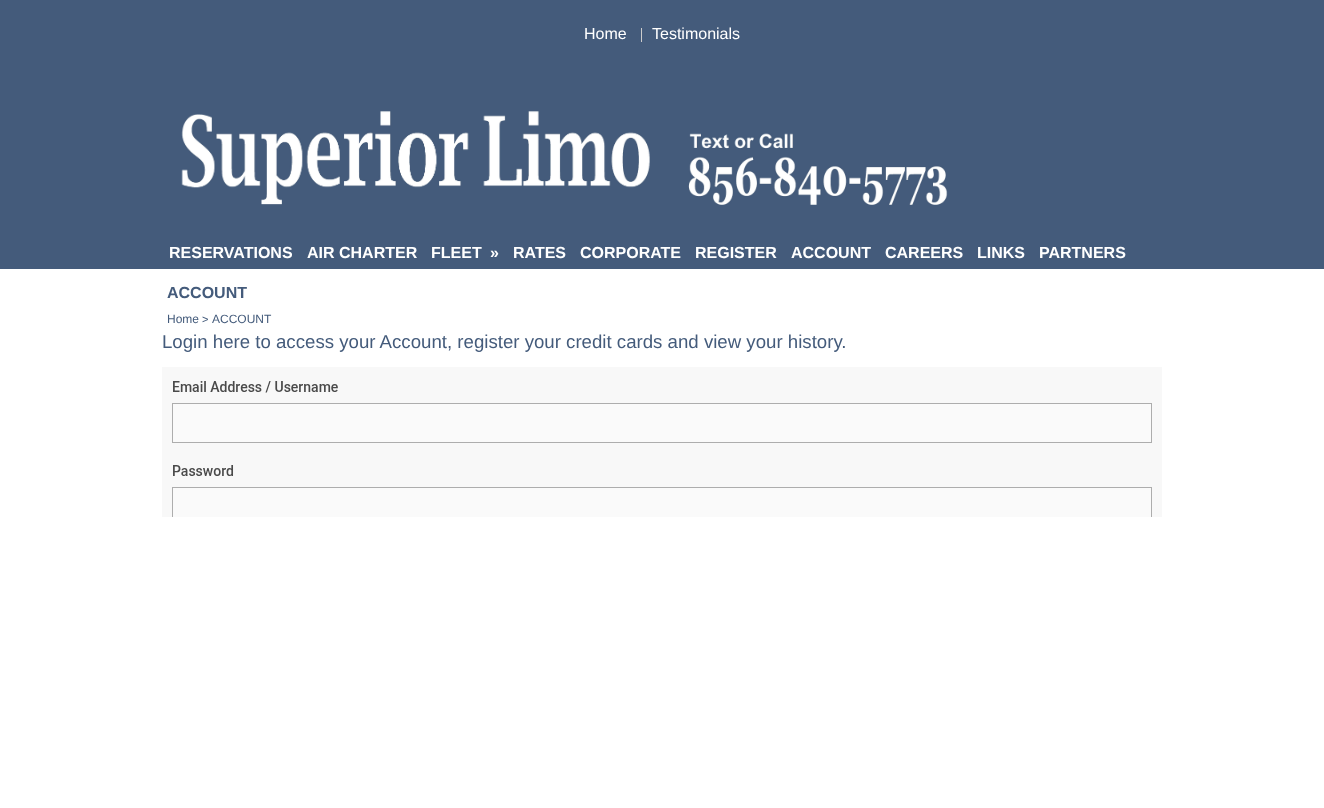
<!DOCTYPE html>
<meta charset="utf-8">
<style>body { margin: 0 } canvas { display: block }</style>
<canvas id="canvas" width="1324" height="808"></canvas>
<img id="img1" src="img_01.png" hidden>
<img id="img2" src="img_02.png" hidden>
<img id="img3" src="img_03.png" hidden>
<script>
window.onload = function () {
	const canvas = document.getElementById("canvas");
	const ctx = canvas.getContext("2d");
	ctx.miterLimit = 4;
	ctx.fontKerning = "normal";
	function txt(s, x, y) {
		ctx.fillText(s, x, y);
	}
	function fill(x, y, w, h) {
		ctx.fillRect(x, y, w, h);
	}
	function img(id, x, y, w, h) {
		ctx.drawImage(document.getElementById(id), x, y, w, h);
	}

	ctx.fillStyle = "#FFFFFF";
	fill(0, 0, 1324, 808);
	ctx.fillStyle = "#445B7B";
	fill(0, 0, 1324, 269);
	ctx.fillStyle = "#CCCCCC";
	fill(641, 28, 1, 14);
	img("img1", 181, 111, 469, 94);
	img("img2", 688, 133, 260, 72);
	img("img3", 162, 367, 1000, 150);
	ctx.font = "16px Liberation Sans";
	ctx.fillStyle = "#FFFFFF";
	txt("Home", 584, 39);
	txt("Testimonials", 652, 39);
	ctx.font = "bold 16px Liberation Sans";
	txt("RESERVATIONS", 169, 258);
	txt("AIR CHARTER", 307, 258);
	txt("FLEET", 431, 258);
	txt("»", 490, 258);
	txt("RATES", 513, 258);
	txt("CORPORATE", 580, 258);
	txt("REGISTER", 695, 258);
	txt("ACCOUNT", 791, 258);
	txt("CAREERS", 885, 258);
	txt("LINKS", 977, 258);
	txt("PARTNERS", 1039, 258);
	ctx.fillStyle = "#445B7B";
	txt("ACCOUNT", 167, 298);
	ctx.font = "12px Liberation Sans";
	txt("Home", 167, 323);
	ctx.font = "11px Liberation Sans";
	txt(">", 202, 323);
	ctx.font = "12px Liberation Sans";
	txt("ACCOUNT", 212, 323);
	ctx.font = "18.65px Liberation Sans";
	txt("Login here to access your Account, register your credit cards and view your history.", 162, 348);
};
</script>
